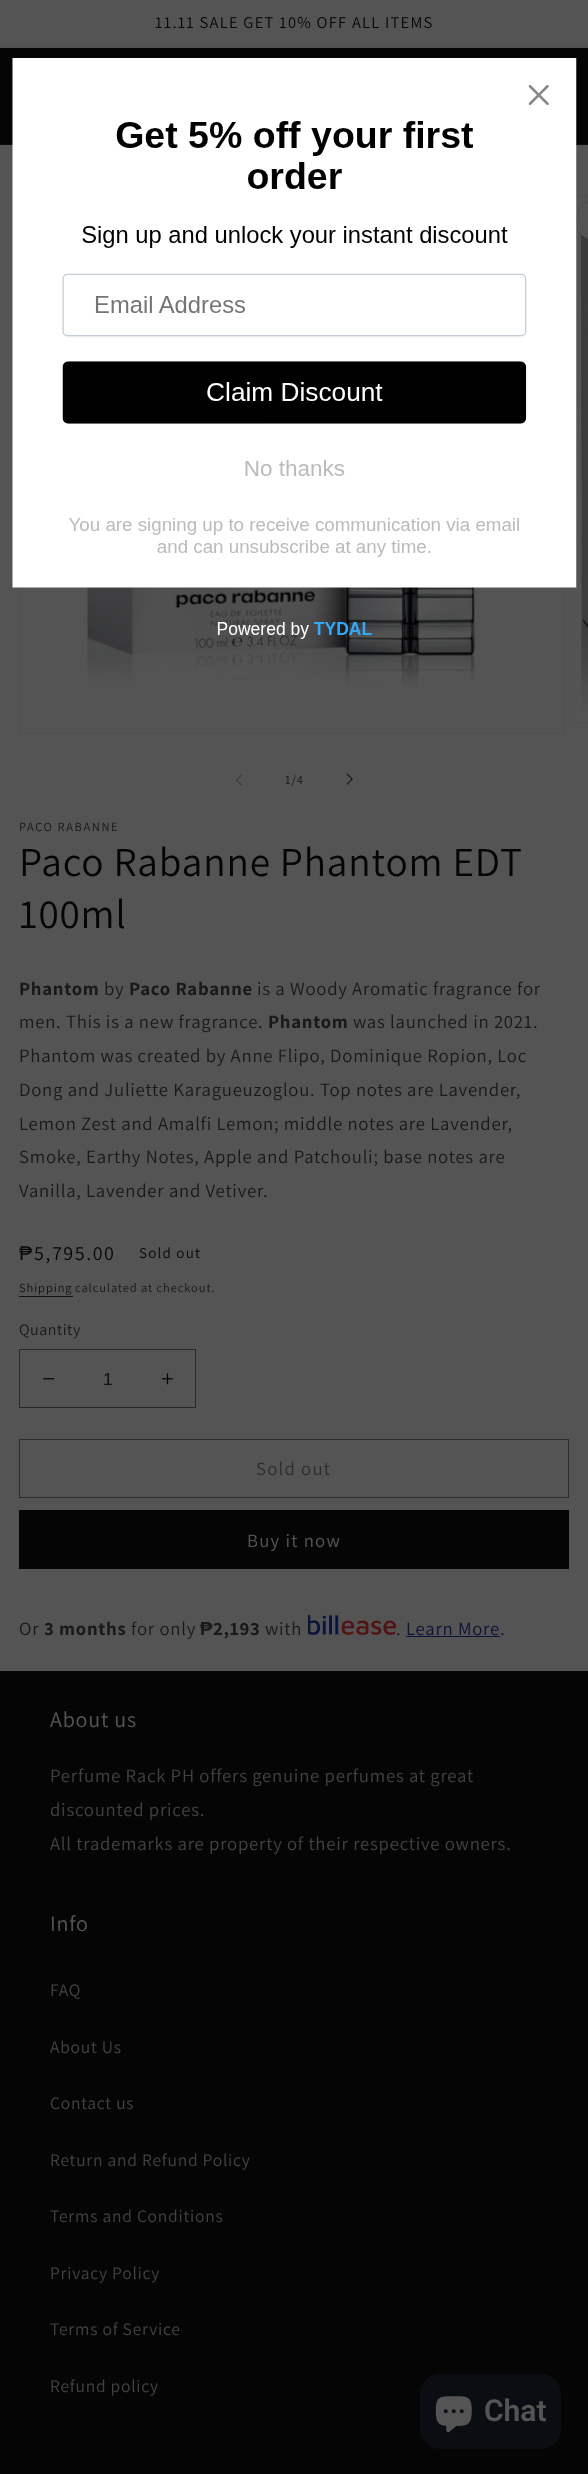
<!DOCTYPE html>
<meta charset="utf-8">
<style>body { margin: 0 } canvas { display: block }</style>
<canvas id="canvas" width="588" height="2474"></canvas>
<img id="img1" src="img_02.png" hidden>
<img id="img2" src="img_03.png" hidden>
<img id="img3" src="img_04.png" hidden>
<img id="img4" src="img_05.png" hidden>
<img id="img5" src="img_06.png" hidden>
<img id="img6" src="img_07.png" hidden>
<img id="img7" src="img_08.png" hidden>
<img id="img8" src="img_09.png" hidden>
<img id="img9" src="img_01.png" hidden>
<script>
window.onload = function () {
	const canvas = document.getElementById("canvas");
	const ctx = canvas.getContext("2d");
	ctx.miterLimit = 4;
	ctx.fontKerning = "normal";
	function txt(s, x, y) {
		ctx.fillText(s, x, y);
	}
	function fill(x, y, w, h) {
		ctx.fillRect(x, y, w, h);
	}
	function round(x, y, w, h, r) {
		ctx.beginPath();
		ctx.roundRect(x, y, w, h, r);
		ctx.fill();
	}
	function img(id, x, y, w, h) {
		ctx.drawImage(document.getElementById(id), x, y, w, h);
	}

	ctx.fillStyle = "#FFFFFF";
	fill(0, 0, 588, 2474);
	ctx.fillStyle = "#ECECEC";
	fill(0, 46, 588, 1);
	ctx.fillStyle = "#121212";
	fill(0, 48, 588, 96);
	ctx.fillStyle = "#252525";
	fill(0, 144, 588, 1);
	ctx.strokeStyle = "#F3F3F3";
	ctx.strokeRect(19.5, 185.5, 545, 548);
	img("img1", 84, 587, 427, 101);
	ctx.strokeRect(570.5, 195.5, 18, 527);
	img("img2", 577, 204, 11, 508);
	ctx.fillStyle = "#FFFFFF";
	ctx.beginPath();
	ctx.moveTo(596, 201);
	ctx.lineTo(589, 201);
	ctx.lineTo(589, 241);
	ctx.lineTo(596, 241);
	ctx.bezierCurveTo(585, 241, 576, 232, 576, 221);
	ctx.bezierCurveTo(576, 210, 585, 201, 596, 201);
	ctx.closePath();
	ctx.fill();
	ctx.beginPath();
	ctx.roundRect(576.5, 201.5, 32, 39, 19.5);
	ctx.strokeStyle = "rgba(18, 18, 18, 0.1)";
	ctx.stroke();
	img("img3", 236, 774, 6, 12);
	img("img4", 346, 773, 7, 12);
	ctx.fillStyle = "#363636";
	fill(19, 1296, 54, 1);
	img("img5", 43, 1378, 12, 2);
	img("img6", 161, 1373, 13, 12);
	ctx.strokeStyle = "#7D7D7D";
	ctx.strokeRect(19.5, 1349.5, 176, 58);
	ctx.strokeStyle = "#898989";
	ctx.strokeRect(19.5, 1439.5, 549, 58);
	ctx.fillStyle = "#121212";
	fill(19, 1510, 550, 59);
	img("img7", 308, 1615, 88, 20);
	ctx.fillStyle = "#203AA9";
	fill(406, 1636, 94, 1);
	ctx.fillStyle = "#121212";
	fill(0, 1671, 588, 803);
	ctx.fillStyle = "#202A36";
	round(420, 2374, 141, 75, 20);
	img("img8", 435, 2396, 37, 37);
	ctx.letterSpacing = "1.25px";
	ctx.font = "16.5px Assistant";
	ctx.fillStyle = "#121212";
	txt("11.11 SALE GET 10% OFF ALL ITEMS", 155, 28);
	ctx.letterSpacing = "0.9px";
	ctx.font = "12.5px Assistant";
	ctx.fillStyle = "#4D4D4D";
	txt("1/4", 285, 784);
	ctx.letterSpacing = "1.6px";
	txt("PACO RABANNE", 19, 831);
	ctx.letterSpacing = "0.8px";
	ctx.font = "41.25px Assistant";
	ctx.fillStyle = "#121212";
	txt("Paco Rabanne Phantom EDT", 19, 876);
	txt("100ml", 19, 928);
	ctx.letterSpacing = "0.75px";
	ctx.font = "bold 18.75px Assistant";
	ctx.fillStyle = "#4D4D4D";
	txt("Phantom", 19, 995);
	ctx.font = "18.75px Assistant";
	txt("by", 104, 995);
	ctx.font = "bold 18.75px Assistant";
	txt("Paco Rabanne", 129, 995);
	ctx.font = "18.75px Assistant";
	txt("is a Woody Aromatic fragrance for", 257, 995);
	txt("men. This is a new fragrance.", 19, 1028);
	ctx.font = "bold 18.75px Assistant";
	txt("Phantom", 268, 1028);
	ctx.font = "18.75px Assistant";
	txt("was launched in 2021.", 353, 1028);
	txt("Phantom was created by Anne Flipo, Dominique Ropion, Loc", 19, 1062);
	txt("Dong and Juliette Karagueuzoglou. Top notes are Lavender,", 19, 1096);
	txt("Lemon Zest and Amalfi Lemon; middle notes are Lavender,", 19, 1130);
	txt("Smoke, Earthy Notes, Apple and Patchouli; base notes are", 19, 1163);
	txt("Vanilla, Lavender and Vetiver.", 19, 1197);
	ctx.letterSpacing = "1.6px";
	ctx.font = "20px Liberation Sans";
	ctx.fillStyle = "#121212";
	txt("₱", 19, 1260);
	ctx.font = "20px Assistant";
	txt("5,795.00", 34, 1260);
	ctx.letterSpacing = "1.25px";
	ctx.font = "15px Assistant";
	txt("Sold out", 139, 1258);
	ctx.letterSpacing = "0.9px";
	ctx.font = "12.5px Assistant";
	ctx.fillStyle = "#363636";
	txt("Shipping", 19, 1292);
	ctx.fillStyle = "#4D4D4D";
	txt("calculated at checkout.", 75, 1292);
	ctx.letterSpacing = "0.5px";
	ctx.font = "16px Assistant";
	txt("Quantity", 19, 1335);
	ctx.letterSpacing = "0px";
	ctx.font = "17.5px Liberation Sans";
	ctx.fillStyle = "#363636";
	txt("1", 103, 1385);
	ctx.letterSpacing = "1.25px";
	ctx.font = "18.75px Assistant";
	ctx.fillStyle = "#898989";
	txt("Sold out", 256, 1475);
	ctx.fillStyle = "#FFFFFF";
	txt("Buy it now", 247, 1547);
	ctx.letterSpacing = "0.75px";
	ctx.fillStyle = "#4D4D4D";
	txt("Or", 19, 1635);
	ctx.font = "bold 18.75px Assistant";
	txt("3 months", 44, 1635);
	ctx.font = "18.75px Assistant";
	txt("for only", 131, 1635);
	ctx.font = "bold 18.75px Liberation Sans";
	txt("₱", 200, 1635);
	ctx.font = "bold 18.75px Assistant";
	txt("2,193", 213, 1635);
	ctx.font = "18.75px Assistant";
	txt("with", 265, 1635);
	txt(".", 396, 1635);
	ctx.fillStyle = "#203AA9";
	txt("Learn More", 406, 1635);
	ctx.fillStyle = "#4D4D4D";
	txt(".", 500, 1635);
	ctx.letterSpacing = "0.8px";
	ctx.font = "22px Assistant";
	ctx.fillStyle = "#FFFFFF";
	txt("About us", 50, 1727);
	ctx.letterSpacing = "0.75px";
	ctx.font = "18.75px Assistant";
	ctx.fillStyle = "#C4C4C4";
	txt("Perfume Rack PH offers genuine perfumes at great", 50, 1782);
	txt("discounted prices.", 50, 1816);
	txt("All trademarks are property of their respective owners.", 50, 1850);
	ctx.letterSpacing = "0.8px";
	ctx.font = "22px Assistant";
	ctx.fillStyle = "#FFFFFF";
	txt("Info", 50, 1931);
	ctx.letterSpacing = "0.75px";
	ctx.font = "17.5px Assistant";
	ctx.fillStyle = "#C4C4C4";
	txt("FAQ", 50, 1996);
	txt("About Us", 50, 2053);
	txt("Contact us", 50, 2109);
	txt("Return and Refund Policy", 50, 2166);
	txt("Terms and Conditions", 50, 2222);
	txt("Privacy Policy", 50, 2279);
	txt("Terms of Service", 50, 2335);
	txt("Refund policy", 50, 2392);
	ctx.letterSpacing = "0px";
	ctx.font = "600 30px Roboto";
	ctx.fillStyle = "#FFFFFF";
	txt("Chat", 484, 2421);
	img("img9", 0, 0, 588, 2474);
};
</script>
